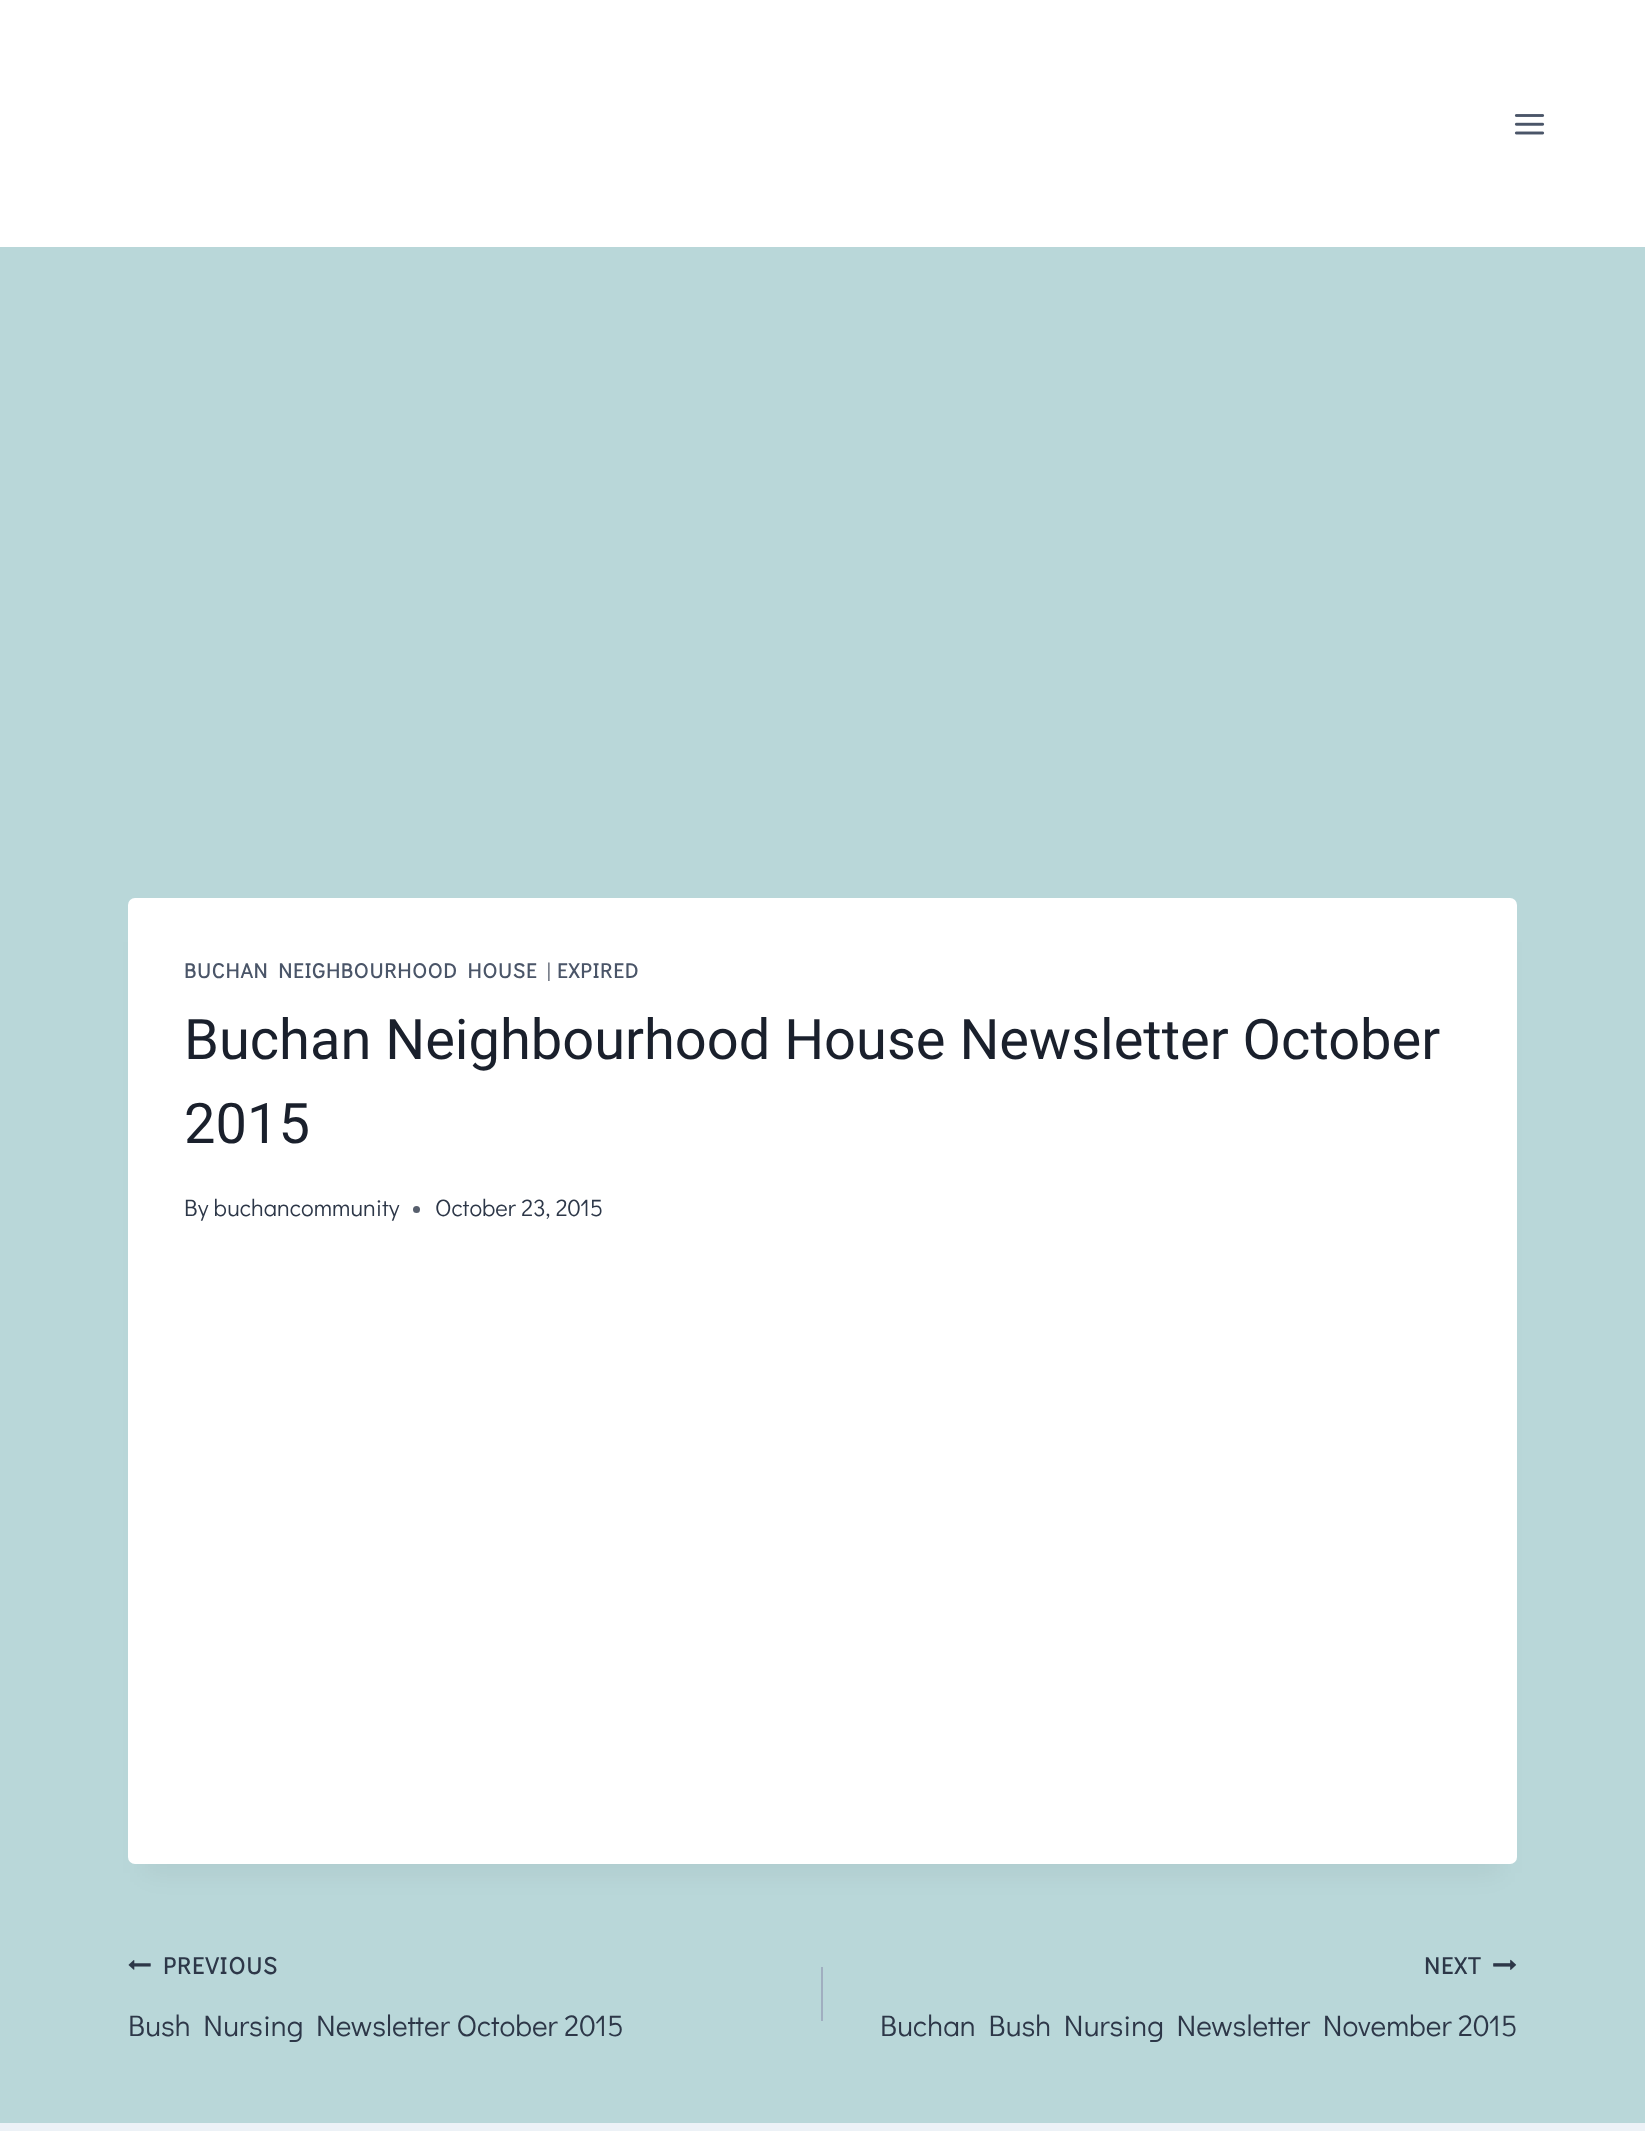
<!DOCTYPE html>
<meta charset="utf-8">
<style>body { margin: 0 } canvas { display: block }</style>
<canvas id="canvas" width="1645" height="2131"></canvas>
<img id="img1" src="img_01.png" hidden>
<img id="img2" src="img_02.png" hidden>
<img id="img3" src="img_03.png" hidden>
<script>
window.onload = function () {
	const canvas = document.getElementById("canvas");
	const ctx = canvas.getContext("2d");
	ctx.miterLimit = 4;
	ctx.fontKerning = "normal";
	function txt(s, x, y) {
		ctx.fillText(s, x, y);
	}
	function fill(x, y, w, h) {
		ctx.fillRect(x, y, w, h);
	}
	function round(x, y, w, h, r) {
		ctx.beginPath();
		ctx.roundRect(x, y, w, h, r);
		ctx.fill();
	}
	function img(id, x, y, w, h) {
		ctx.drawImage(document.getElementById(id), x, y, w, h);
	}

	ctx.fillStyle = "#B9D7D9";
	fill(0, 0, 1645, 2131);
	ctx.fillStyle = "#FFFFFF";
	fill(0, 0, 1645, 247);
	img("img1", 1514, 114, 31, 21);
	ctx.fillStyle = "rgba(0, 0, 0, 0.05)";
	ctx.filter = "blur(13px)";
	ctx.beginPath();
	ctx.rect(145, 942, 1355, 931);
	ctx.fill();
	ctx.filter = "none";
	ctx.fillStyle = "#FFFFFF";
	round(128, 898, 1389, 966, 7);
	ctx.fillStyle = "#575F6D";
	ctx.beginPath();
	ctx.arc(416.5, 1209.5, 3.5, 0, Math.PI * 2);
	ctx.fill();
	img("img2", 128, 1960, 23, 10);
	ctx.fillStyle = "#A0AEC0";
	fill(821, 1967, 2, 54);
	img("img3", 1493, 1959, 24, 11);
	ctx.fillStyle = "#EDF2F7";
	fill(0, 2123, 1645, 8);
	ctx.letterSpacing = "1.05px";
	ctx.font = "bold 20.8px Didact Gothic";
	ctx.fillStyle = "#4A5568";
	txt("BUCHAN NEIGHBOURHOOD HOUSE", 184, 978);
	ctx.font = "20.8px Didact Gothic";
	ctx.fillStyle = "#2D3748";
	txt("|", 547, 978);
	ctx.font = "bold 20.8px Didact Gothic";
	ctx.fillStyle = "#4A5568";
	txt("EXPIRED", 557, 978);
	ctx.letterSpacing = "0px";
	ctx.font = "56px Roboto";
	ctx.fillStyle = "#1A202C";
	txt("Buchan Neighbourhood House Newsletter October", 184, 1059);
	txt("2015", 184, 1143);
	ctx.font = "23.75px Didact Gothic";
	ctx.fillStyle = "#2D3748";
	txt("By buchancommunity", 184, 1216);
	txt("October 23, 2015", 435, 1216);
	ctx.letterSpacing = "1.25px";
	ctx.font = "bold 23.75px Didact Gothic";
	txt("PREVIOUS", 163, 1974);
	ctx.letterSpacing = "0px";
	ctx.font = "29.75px Didact Gothic";
	txt("Bush Nursing Newsletter October 2015", 128, 2036);
	ctx.letterSpacing = "1.25px";
	ctx.font = "bold 23.75px Didact Gothic";
	txt("NEXT", 1424, 1974);
	ctx.letterSpacing = "0px";
	ctx.font = "29.75px Didact Gothic";
	txt("Buchan Bush Nursing Newsletter November 2015", 880, 2036);
};
</script>
